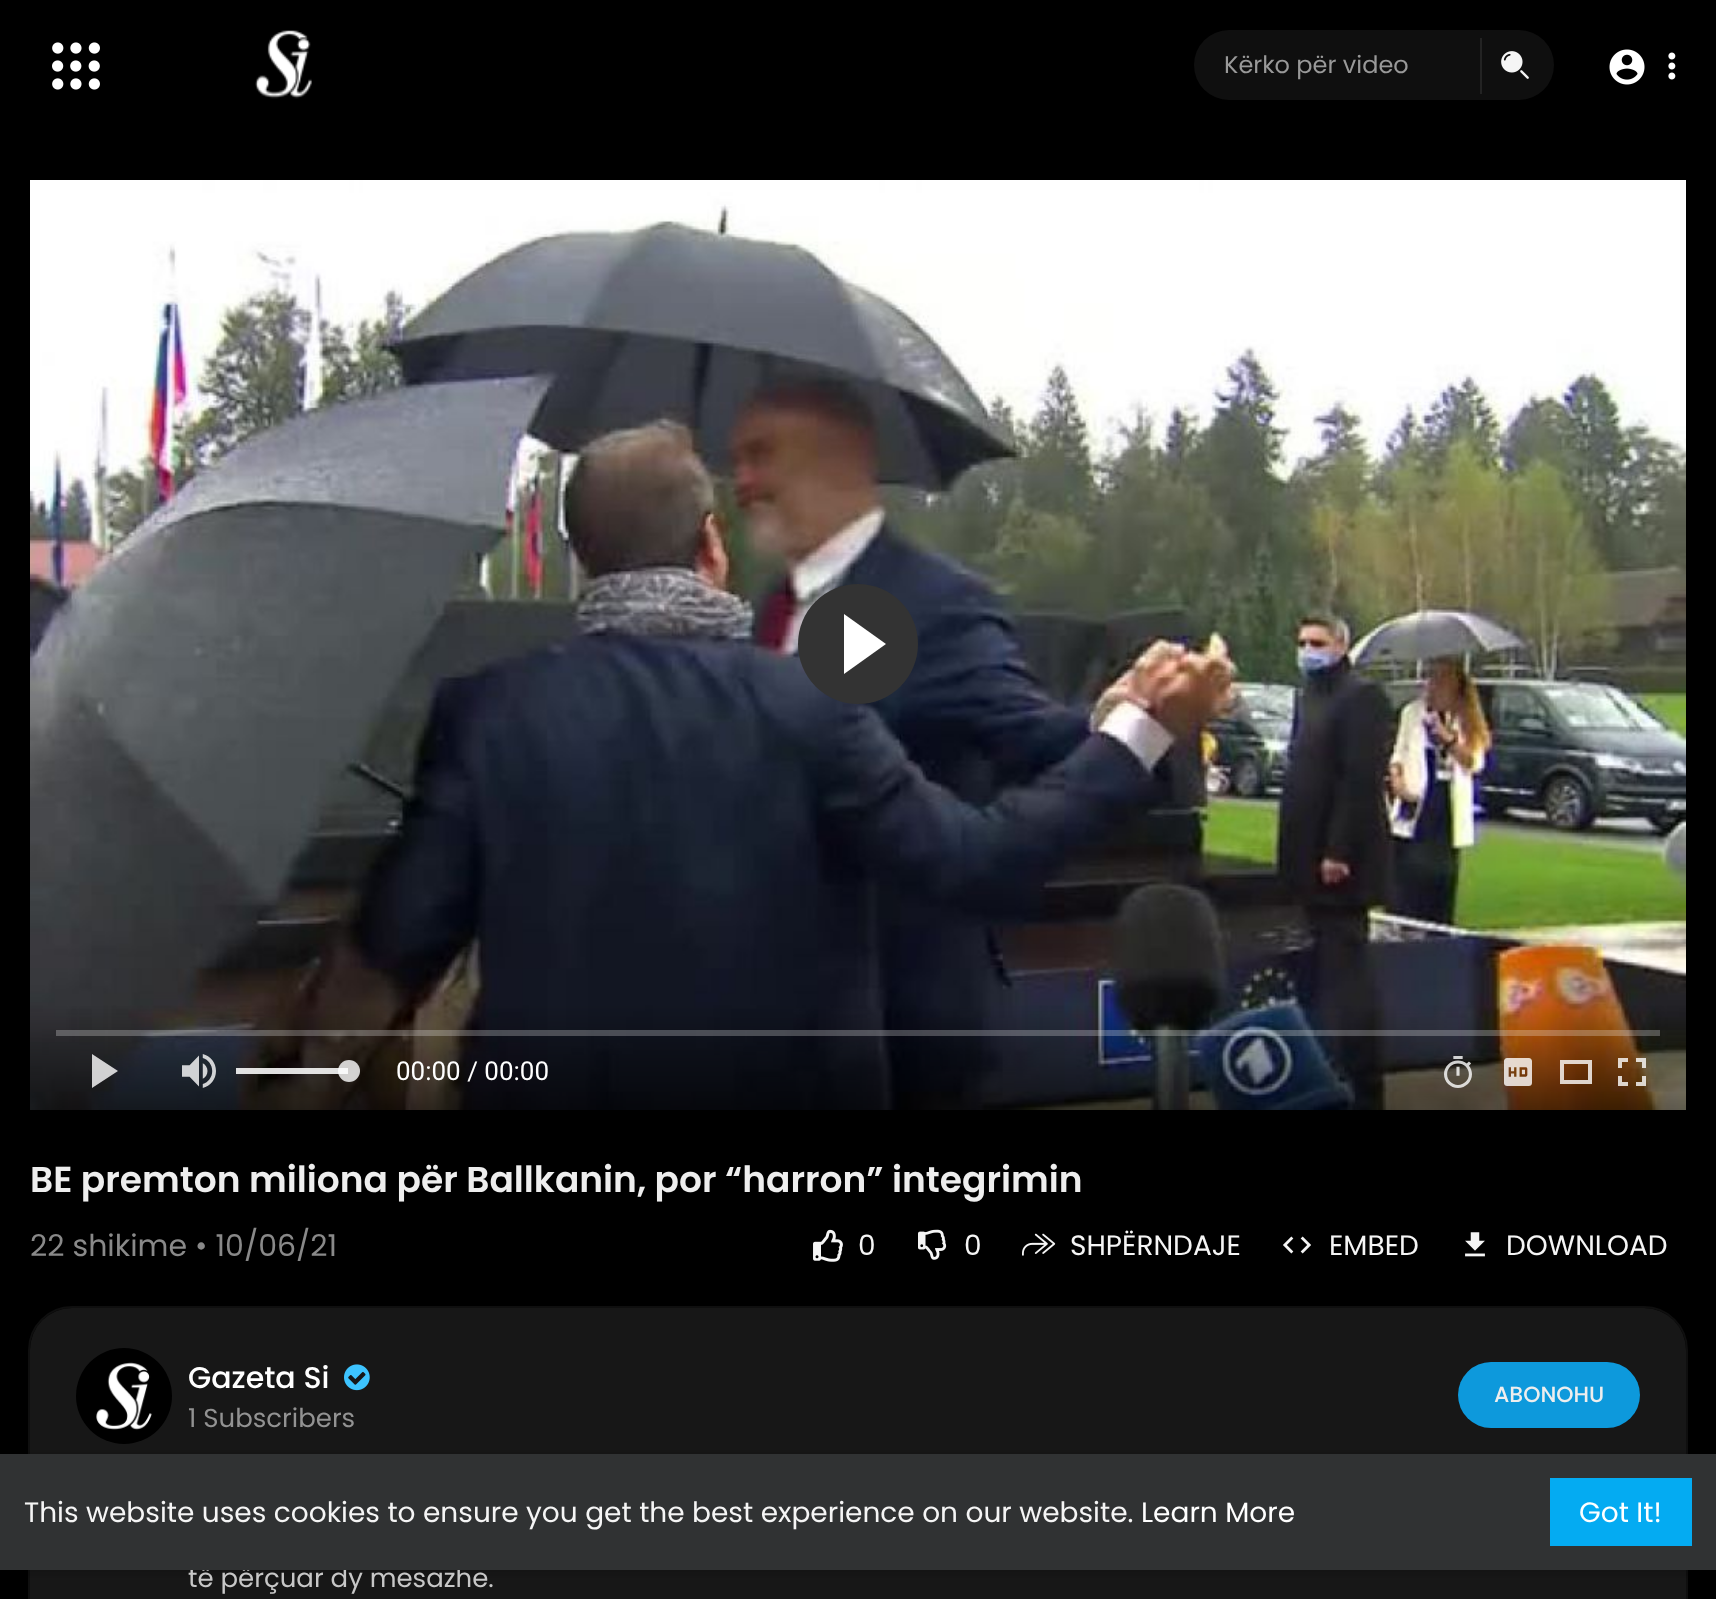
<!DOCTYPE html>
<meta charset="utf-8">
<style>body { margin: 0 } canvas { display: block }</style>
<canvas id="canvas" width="1716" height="1599"></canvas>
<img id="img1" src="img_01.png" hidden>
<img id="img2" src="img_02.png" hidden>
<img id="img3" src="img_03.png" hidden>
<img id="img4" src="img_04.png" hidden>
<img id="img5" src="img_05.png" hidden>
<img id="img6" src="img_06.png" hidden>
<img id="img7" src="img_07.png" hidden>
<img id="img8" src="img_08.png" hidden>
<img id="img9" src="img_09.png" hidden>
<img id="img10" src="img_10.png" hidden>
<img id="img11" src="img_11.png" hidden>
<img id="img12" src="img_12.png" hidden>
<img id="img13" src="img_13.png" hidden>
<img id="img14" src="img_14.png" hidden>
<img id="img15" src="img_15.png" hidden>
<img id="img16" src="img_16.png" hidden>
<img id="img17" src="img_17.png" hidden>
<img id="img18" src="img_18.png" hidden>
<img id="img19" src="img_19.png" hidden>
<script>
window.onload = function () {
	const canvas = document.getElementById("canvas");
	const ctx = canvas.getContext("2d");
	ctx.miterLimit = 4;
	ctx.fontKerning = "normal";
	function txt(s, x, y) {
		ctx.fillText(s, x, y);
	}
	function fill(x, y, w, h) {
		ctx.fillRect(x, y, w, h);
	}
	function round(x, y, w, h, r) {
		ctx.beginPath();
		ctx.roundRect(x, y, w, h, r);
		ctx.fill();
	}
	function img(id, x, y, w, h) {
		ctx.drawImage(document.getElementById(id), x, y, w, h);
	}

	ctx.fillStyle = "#000000";
	fill(0, 0, 1716, 1599);
	img("img1", 52, 42, 48, 48);
	img("img2", 255, 30, 57, 69);
	ctx.fillStyle = "#0F0F0F";
	round(1194, 30, 360, 70, 35);
	ctx.fillStyle = "#232323";
	fill(1480, 38, 2, 56);
	img("img3", 1501, 51, 28, 28);
	img("img4", 1609, 49, 36, 36);
	img("img5", 1668, 52, 8, 28);
	img("img6", 30, 180, 1656, 930);
	ctx.fillStyle = "#333333";
	ctx.beginPath();
	ctx.arc(858, 644, 60, 0, Math.PI * 2);
	ctx.fill();
	ctx.fillStyle = "#FFFFFF";
	ctx.beginPath();
	ctx.moveTo(844, 674);
	ctx.lineTo(844, 614);
	ctx.lineTo(886, 644);
	ctx.closePath();
	ctx.fill();
	ctx.fillStyle = "rgba(255, 255, 255, 0.25)";
	fill(56, 1030, 1604, 6);
	img("img7", 92, 1054, 26, 34);
	img("img8", 182, 1054, 34, 34);
	ctx.fillStyle = "rgba(171, 172, 172, 0.54)";
	fill(236, 1068, 112, 6);
	ctx.fillStyle = "rgba(255, 255, 255, 0.8)";
	fill(236, 1068, 112, 6);
	ctx.beginPath();
	ctx.arc(349, 1071, 11, 0, Math.PI * 2);
	ctx.fill();
	img("img9", 1444, 1056, 28, 32);
	img("img10", 1504, 1058, 28, 28);
	img("img11", 1560, 1060, 32, 24);
	img("img12", 1618, 1058, 28, 28);
	img("img13", 813, 1229, 30, 33);
	img("img14", 918, 1229, 29, 31);
	img("img15", 1022, 1233, 34, 23);
	img("img16", 1283, 1236, 28, 18);
	img("img17", 1465, 1232, 20, 25);
	ctx.beginPath();
	ctx.roundRect(29, 1307, 1658, 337, 43);
	ctx.strokeStyle = "#0F0F0F";
	ctx.lineWidth = 2;
	ctx.stroke();
	ctx.fillStyle = "#171717";
	round(30, 1308, 1656, 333, 42);
	img("img18", 76, 1348, 96, 96);
	img("img19", 344, 1364, 26, 27);
	ctx.fillStyle = "#0D99DC";
	round(1458, 1362, 182, 66, 33);
	ctx.fillStyle = "rgba(0, 0, 0, 0.06)";
	ctx.filter = "blur(2px)";
	ctx.beginPath();
	ctx.rect(0, 1456, 1716, 116);
	ctx.fill();
	ctx.filter = "none";
	ctx.fillStyle = "rgba(0, 0, 0, 0.1)";
	ctx.filter = "blur(3px)";
	ctx.beginPath();
	ctx.rect(0, 1456, 1716, 116);
	ctx.fill();
	ctx.filter = "none";
	ctx.font = "24px Poppins";
	ctx.fillStyle = "#999999";
	txt("Kërko për video", 1224, 73);
	ctx.font = "26px Roboto";
	ctx.fillStyle = "#FFFFFF";
	txt("00:00 / 00:00", 396, 1080);
	ctx.font = "600 36px Poppins";
	ctx.fillStyle = "#EEEEEE";
	txt("BE premton miliona për Ballkanin, por “harron” integrimin", 30, 1192);
	ctx.font = "30px Poppins";
	ctx.fillStyle = "#898989";
	txt("22 shikime • 10/06/21", 30, 1256);
	ctx.font = "28px Poppins";
	ctx.fillStyle = "#F5F5F5";
	txt("0", 858, 1255);
	txt("0", 964, 1255);
	txt("SHPËRNDAJE", 1070, 1255);
	txt("EMBED", 1329, 1255);
	txt("DOWNLOAD", 1506, 1255);
	ctx.font = "500 30px Poppins";
	ctx.fillStyle = "#FFFFFF";
	txt("Gazeta Si", 188, 1388);
	ctx.font = "26px Poppins";
	ctx.fillStyle = "#929292";
	txt("1 Subscribers", 188, 1427);
	ctx.font = "500 22px Poppins";
	ctx.fillStyle = "#EEEEEE";
	txt("ABONOHU", 1494, 1402);
	ctx.font = "26px Poppins";
	ctx.fillStyle = "#C7C7C7";
	txt("të përçuar dy mesazhe.", 188, 1587);
	ctx.fillStyle = "#303233";
	fill(0, 1454, 1716, 116);
	ctx.font = "28px Poppins";
	ctx.fillStyle = "#F5F5F5";
	txt("This website uses cookies to ensure you get the best experience on our website.", 24, 1522);
	ctx.fillStyle = "#FFFFFF";
	txt("Learn More", 1141, 1522);
	ctx.fillStyle = "#04ABF2";
	fill(1550, 1478, 142, 68);
	ctx.fillStyle = "#FFFFFF";
	txt("Got It!", 1579, 1522);
};
</script>
